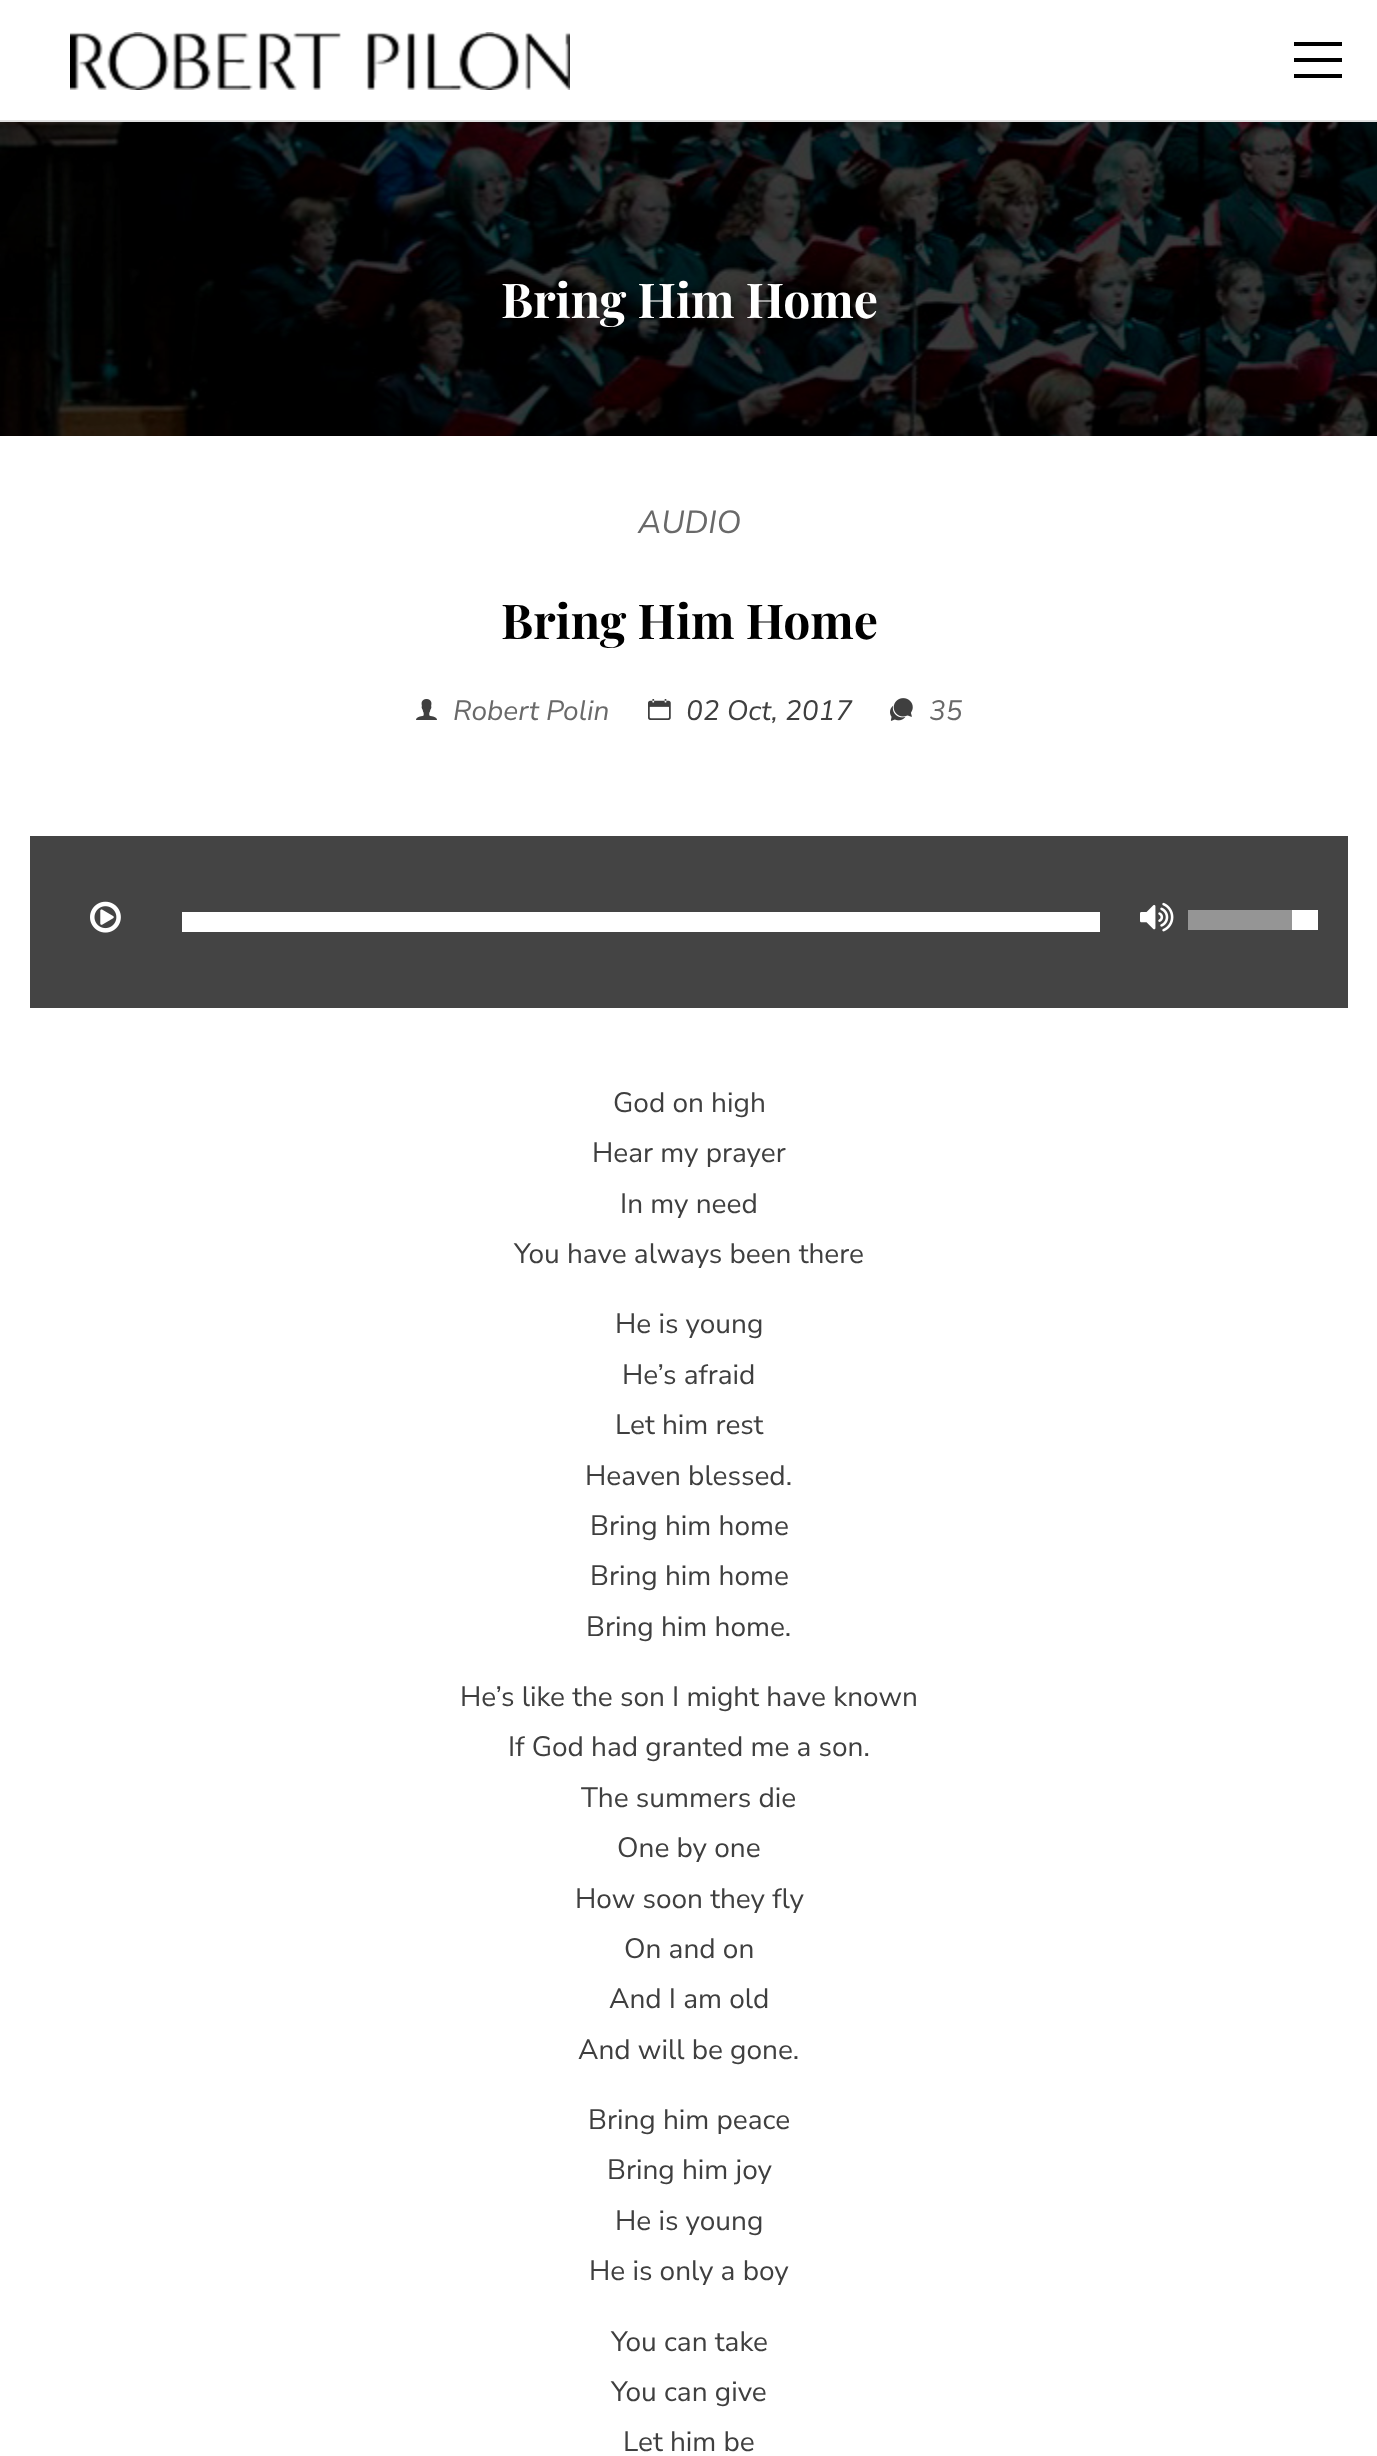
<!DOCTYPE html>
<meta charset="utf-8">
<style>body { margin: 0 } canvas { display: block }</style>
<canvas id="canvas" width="1377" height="2456"></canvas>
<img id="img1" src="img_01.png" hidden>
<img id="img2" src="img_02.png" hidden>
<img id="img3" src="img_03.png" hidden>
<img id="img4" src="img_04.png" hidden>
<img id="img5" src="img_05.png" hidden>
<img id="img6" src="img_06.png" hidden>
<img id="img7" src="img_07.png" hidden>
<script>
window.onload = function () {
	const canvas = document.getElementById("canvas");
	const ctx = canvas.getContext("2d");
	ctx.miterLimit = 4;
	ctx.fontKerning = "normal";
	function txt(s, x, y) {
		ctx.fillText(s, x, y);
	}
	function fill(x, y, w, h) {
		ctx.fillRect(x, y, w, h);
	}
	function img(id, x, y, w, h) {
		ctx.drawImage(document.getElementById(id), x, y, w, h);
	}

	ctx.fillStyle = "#FFFFFF";
	fill(0, 0, 1377, 2456);
	ctx.fillStyle = "#E0E0E0";
	fill(0, 120, 1377, 2);
	img("img1", 70, 32, 500, 58);
	ctx.fillStyle = "#000000";
	fill(1294, 42, 48, 4);
	fill(1294, 58, 48, 4);
	fill(1294, 74, 48, 4);
	img("img2", 0, 122, 1377, 314);
	img("img3", 416, 699, 21, 21);
	img("img4", 648, 699, 23, 21);
	img("img5", 890, 698, 23, 23);
	ctx.fillStyle = "#444444";
	fill(30, 836, 1318, 172);
	img("img6", 90, 901, 31, 32);
	ctx.fillStyle = "#FFFFFF";
	fill(182, 912, 918, 20);
	img("img7", 1140, 902, 34, 30);
	fill(1292, 910, 26, 20);
	ctx.fillStyle = "#959595";
	fill(1188, 910, 104, 20);
	ctx.font = "bold 48px Playfair Display";
	ctx.fillStyle = "#FFFFFF";
	txt("Bring Him Home", 501, 318);
	ctx.font = "italic 32px Nunito Sans";
	ctx.fillStyle = "#696969";
	txt("AUDIO", 638, 533);
	ctx.font = "bold 48px Playfair Display";
	ctx.fillStyle = "#000000";
	txt("Bring Him Home", 501, 639);
	ctx.font = "italic 28px Nunito Sans";
	ctx.fillStyle = "#696969";
	txt("Robert Polin", 453, 720);
	ctx.fillStyle = "#3F3F3F";
	txt("02 Oct, 2017", 686, 720);
	ctx.fillStyle = "#696969";
	txt("35", 929, 720);
	ctx.font = "28px Nunito Sans";
	ctx.fillStyle = "#3F3F3F";
	txt("God on high", 613, 1112);
	txt("Hear my prayer", 592, 1162);
	txt("In my need", 620, 1213);
	txt("You have always been there", 514, 1263);
	txt("He is young", 615, 1333);
	txt("He’s afraid", 622, 1384);
	txt("Let him rest", 615, 1434);
	txt("Heaven blessed.", 585, 1485);
	txt("Bring him home", 590, 1535);
	txt("Bring him home", 590, 1585);
	txt("Bring him home.", 586, 1636);
	txt("He’s like the son I might have known", 460, 1706);
	txt("If God had granted me a son.", 508, 1756);
	txt("The summers die", 581, 1807);
	txt("One by one", 617, 1857);
	txt("How soon they fly", 575, 1908);
	txt("On and on", 624, 1958);
	txt("And I am old", 609, 2008);
	txt("And will be gone.", 578, 2059);
	txt("Bring him peace", 588, 2129);
	txt("Bring him joy", 607, 2179);
	txt("He is young", 615, 2230);
	txt("He is only a boy", 589, 2280);
	txt("You can take", 611, 2351);
	txt("You can give", 611, 2401);
	txt("Let him be", 623, 2451);
};
</script>
